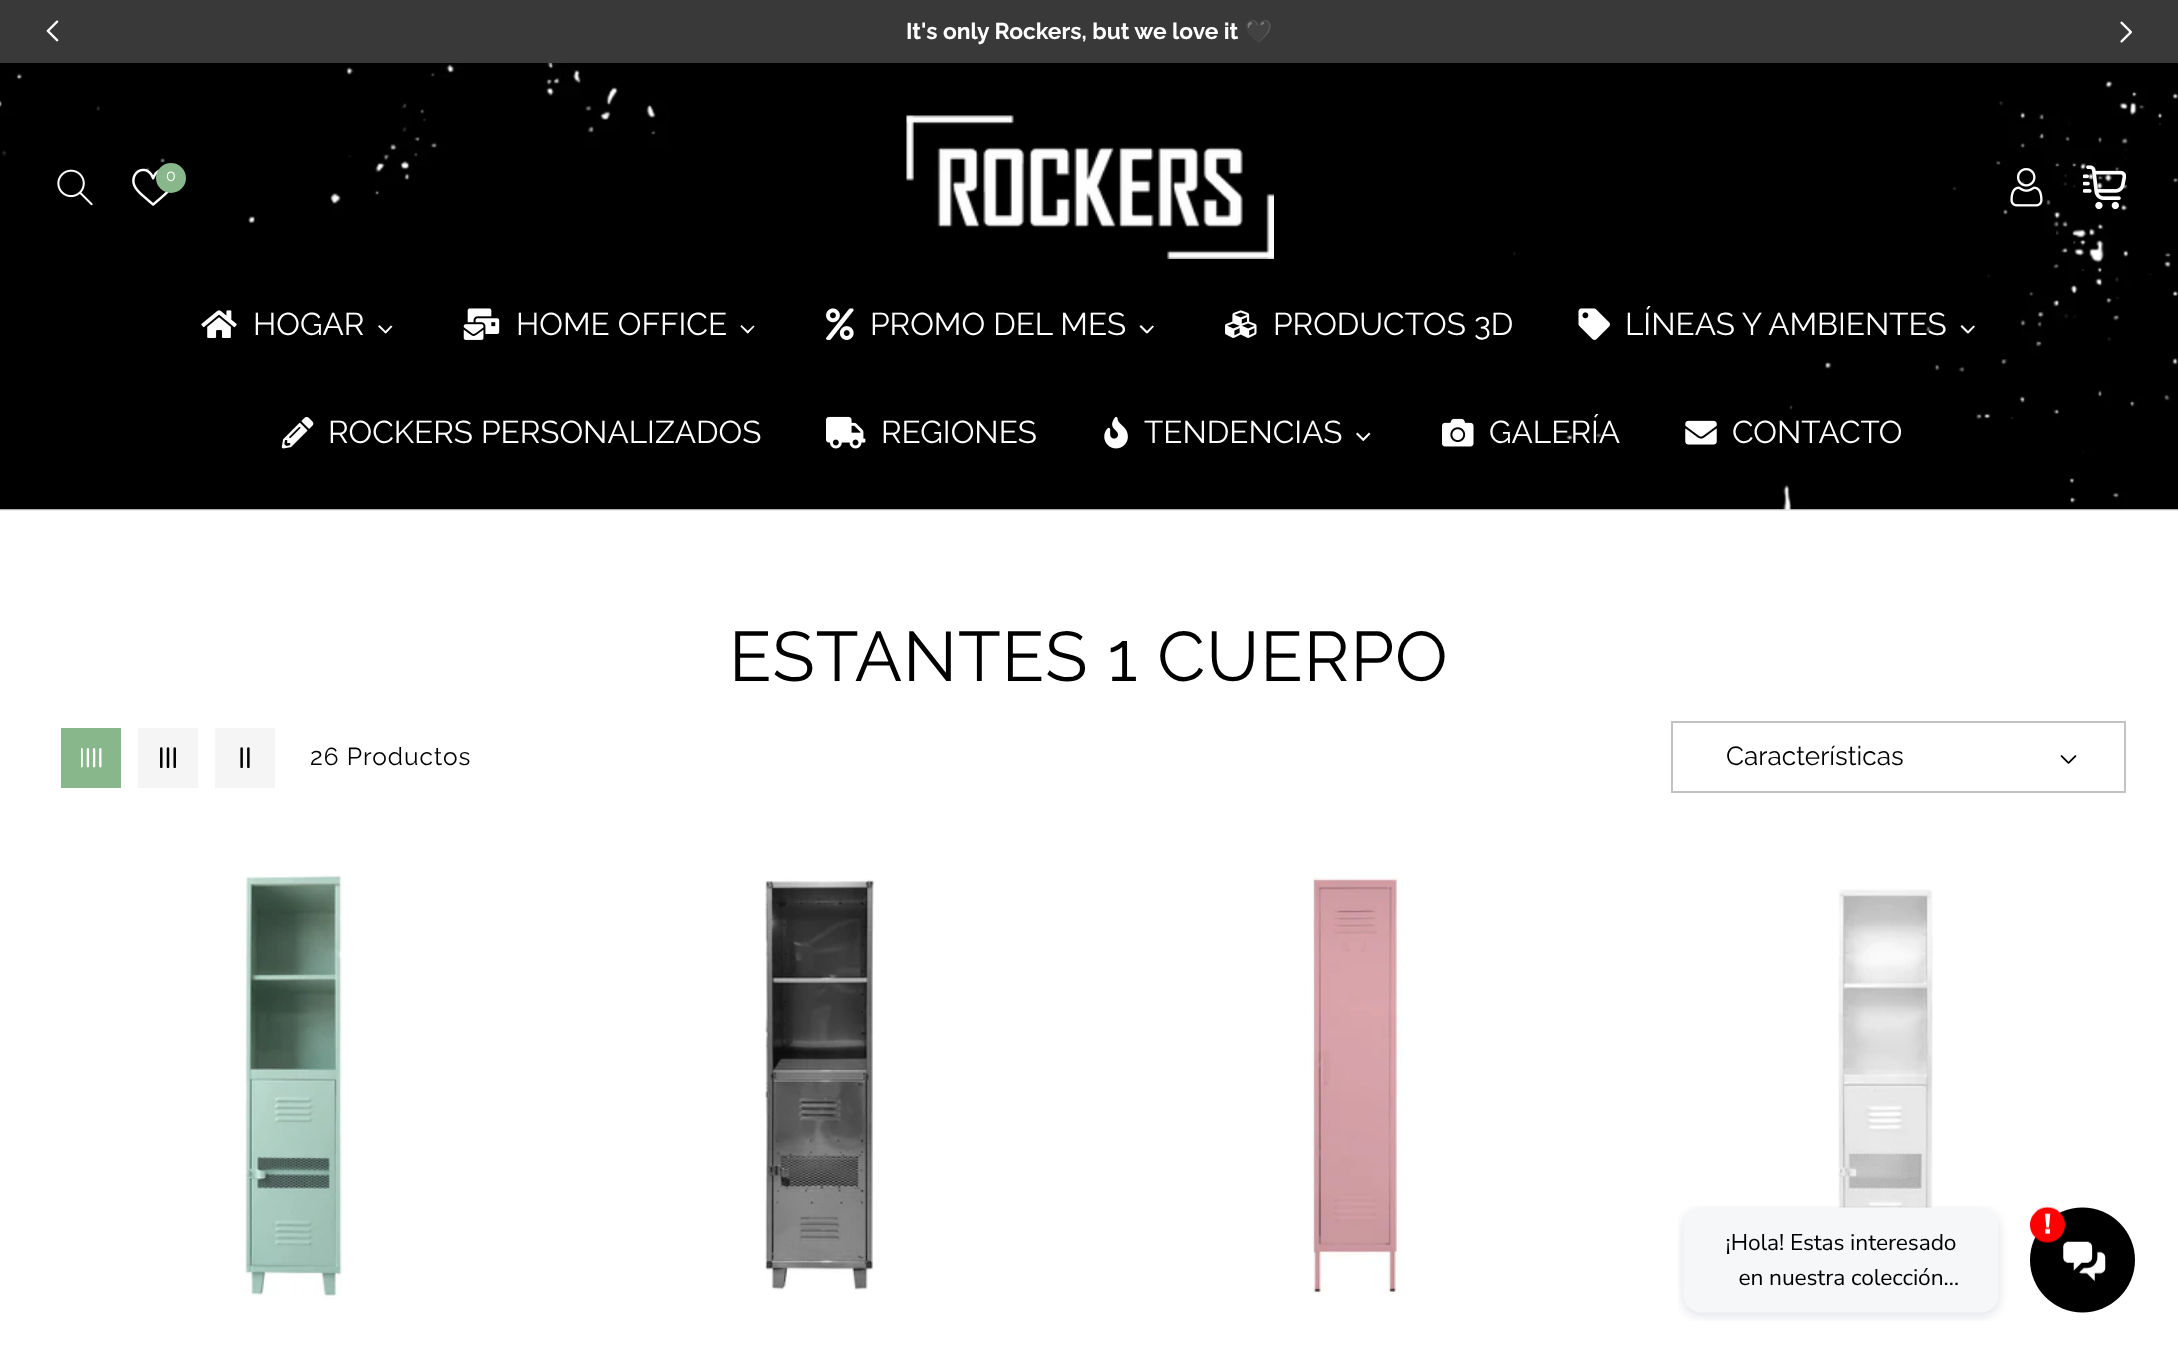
<!DOCTYPE html>
<meta charset="utf-8">
<style>body { margin: 0 } canvas { display: block }</style>
<canvas id="canvas" width="2178" height="1356"></canvas>
<img id="img1" src="img_01.png" hidden>
<img id="img2" src="img_02.png" hidden>
<img id="img3" src="img_03.png" hidden>
<img id="img4" src="img_04.png" hidden>
<img id="img5" src="img_05.png" hidden>
<img id="img6" src="img_06.png" hidden>
<img id="img7" src="img_07.png" hidden>
<img id="img8" src="img_08.png" hidden>
<img id="img9" src="img_09.png" hidden>
<img id="img10" src="img_10.png" hidden>
<img id="img11" src="img_11.png" hidden>
<img id="img12" src="img_12.png" hidden>
<img id="img13" src="img_13.png" hidden>
<img id="img14" src="img_14.png" hidden>
<img id="img15" src="img_15.png" hidden>
<img id="img16" src="img_16.png" hidden>
<img id="img17" src="img_17.png" hidden>
<img id="img18" src="img_18.png" hidden>
<img id="img19" src="img_19.png" hidden>
<img id="img20" src="img_20.png" hidden>
<img id="img21" src="img_21.png" hidden>
<img id="img22" src="img_22.png" hidden>
<img id="img23" src="img_23.png" hidden>
<img id="img24" src="img_24.png" hidden>
<img id="img25" src="img_25.png" hidden>
<img id="img26" src="img_26.png" hidden>
<img id="img27" src="img_27.png" hidden>
<script>
window.onload = function () {
	const canvas = document.getElementById("canvas");
	const ctx = canvas.getContext("2d");
	ctx.miterLimit = 4;
	ctx.fontKerning = "normal";
	function txt(s, x, y) {
		ctx.fillText(s, x, y);
	}
	function fill(x, y, w, h) {
		ctx.fillRect(x, y, w, h);
	}
	function img(id, x, y, w, h) {
		ctx.drawImage(document.getElementById(id), x, y, w, h);
	}

	ctx.fillStyle = "#FFFFFF";
	fill(0, 0, 2178, 1356);
	ctx.fillStyle = "#383838";
	fill(0, 61, 2178, 2);
	ctx.fillStyle = "#393939";
	fill(0, 0, 2178, 61);
	img("img1", 46, 20, 13, 22);
	img("img2", 2120, 21, 12, 22);
	img("img3", 0, 63, 2178, 447);
	ctx.fillStyle = "rgba(0, 0, 0, 0.08)";
	fill(0, 509, 2178, 2);
	img("img4", 57, 169, 36, 37);
	img("img5", 132, 168, 37, 38);
	ctx.fillStyle = "#87B78A";
	ctx.beginPath();
	ctx.arc(171, 178, 15, 0, Math.PI * 2);
	ctx.fill();
	img("img6", 906, 115, 368, 144);
	img("img7", 2010, 168, 33, 39);
	img("img8", 2083, 165, 43, 45);
	img("img9", 201, 310, 36, 28);
	ctx.fillStyle = "#FFFFFF";
	ctx.beginPath();
	ctx.moveTo(391, 325.5);
	ctx.lineTo(392.5, 326.5);
	ctx.lineTo(386, 333.5);
	ctx.lineTo(384.5, 332);
	ctx.closePath();
	ctx.fill();
	ctx.beginPath();
	ctx.moveTo(379.5, 325);
	ctx.lineTo(386.5, 332);
	ctx.lineTo(385.5, 333.5);
	ctx.lineTo(378, 326.5);
	ctx.closePath();
	ctx.fill();
	img("img10", 463, 308, 37, 32);
	ctx.beginPath();
	ctx.moveTo(753.5, 325.5);
	ctx.lineTo(754.5, 326.5);
	ctx.lineTo(748, 333.5);
	ctx.lineTo(746.5, 332);
	ctx.closePath();
	ctx.fill();
	ctx.beginPath();
	ctx.moveTo(741.5, 325);
	ctx.lineTo(749, 332);
	ctx.lineTo(747.5, 333.5);
	ctx.lineTo(740.5, 326.5);
	ctx.closePath();
	ctx.fill();
	img("img11", 826, 308, 28, 32);
	ctx.beginPath();
	ctx.moveTo(1152.5, 325.5);
	ctx.lineTo(1154, 326.5);
	ctx.lineTo(1147.5, 333.5);
	ctx.lineTo(1146, 332);
	ctx.closePath();
	ctx.fill();
	ctx.beginPath();
	ctx.moveTo(1141, 325);
	ctx.lineTo(1148, 332);
	ctx.lineTo(1146.5, 333.5);
	ctx.lineTo(1139.5, 326.5);
	ctx.closePath();
	ctx.fill();
	img("img12", 1225, 310, 32, 28);
	img("img13", 1578, 308, 32, 32);
	ctx.beginPath();
	ctx.moveTo(1973.5, 325.5);
	ctx.lineTo(1975, 326.5);
	ctx.lineTo(1968.5, 333.5);
	ctx.lineTo(1967, 332);
	ctx.closePath();
	ctx.fill();
	ctx.beginPath();
	ctx.moveTo(1962, 325);
	ctx.lineTo(1969, 332);
	ctx.lineTo(1967.5, 333.5);
	ctx.lineTo(1960.5, 326.5);
	ctx.closePath();
	ctx.fill();
	img("img14", 281, 417, 33, 32);
	img("img15", 826, 416, 40, 33);
	img("img16", 1104, 417, 24, 32);
	ctx.beginPath();
	ctx.moveTo(1369, 432.5);
	ctx.lineTo(1370.5, 434);
	ctx.lineTo(1363.5, 441);
	ctx.lineTo(1362, 439.5);
	ctx.closePath();
	ctx.fill();
	ctx.beginPath();
	ctx.moveTo(1357.5, 432.5);
	ctx.lineTo(1364.5, 439.5);
	ctx.lineTo(1363, 441);
	ctx.lineTo(1356, 434);
	ctx.closePath();
	ctx.fill();
	img("img17", 1442, 418, 32, 29);
	img("img18", 1685, 420, 32, 25);
	ctx.fillStyle = "#87B78A";
	fill(61, 728, 60, 60);
	img("img19", 81, 748, 21, 20);
	ctx.fillStyle = "#F5F5F5";
	fill(138, 728, 60, 60);
	img("img20", 160, 747, 16, 21);
	fill(215, 728, 60, 60);
	img("img21", 240, 747, 10, 21);
	ctx.strokeStyle = "#C3C3C3";
	ctx.lineWidth = 2;
	ctx.strokeRect(1672, 722, 453, 70);
	img("img22", 2060, 755, 17, 9);
	img("img23", 244, 875, 98, 424);
	img("img24", 765, 879, 110, 411);
	img("img25", 1310, 877, 93, 418);
	img("img26", 1838, 889, 95, 319);
	img("img27", 1678, 1206, 457, 115);
	ctx.font = "bold 22.75px Raleway";
	ctx.fillStyle = "#FFFFFF";
	txt("It's only Rockers, but we love it", 906, 39);
	ctx.font = "bold 22.75px Noto Color Emoji";
	txt("🖤", 1244, 39);
	ctx.font = "16px Raleway";
	txt("0", 166, 181);
	ctx.font = "31.5px Raleway";
	txt("HOGAR", 253, 335);
	txt("HOME OFFICE", 516, 335);
	txt("PROMO DEL MES", 870, 335);
	txt("PRODUCTOS 3D", 1273, 335);
	txt("LÍNEAS Y AMBIENTES", 1625, 335);
	txt("ROCKERS PERSONALIZADOS", 328, 443);
	txt("REGIONES", 881, 443);
	txt("TENDENCIAS", 1144, 443);
	txt("GALERÍA", 1489, 443);
	txt("CONTACTO", 1732, 443);
	ctx.letterSpacing = "1px";
	ctx.font = "70px Raleway";
	ctx.fillStyle = "#000000";
	txt("ESTANTES 1 CUERPO", 729, 681);
	ctx.font = "24.5px Raleway";
	txt("26 Productos", 310, 765);
	ctx.letterSpacing = "0px";
	ctx.font = "26.25px Raleway";
	txt("Características", 1726, 765);
};
</script>
